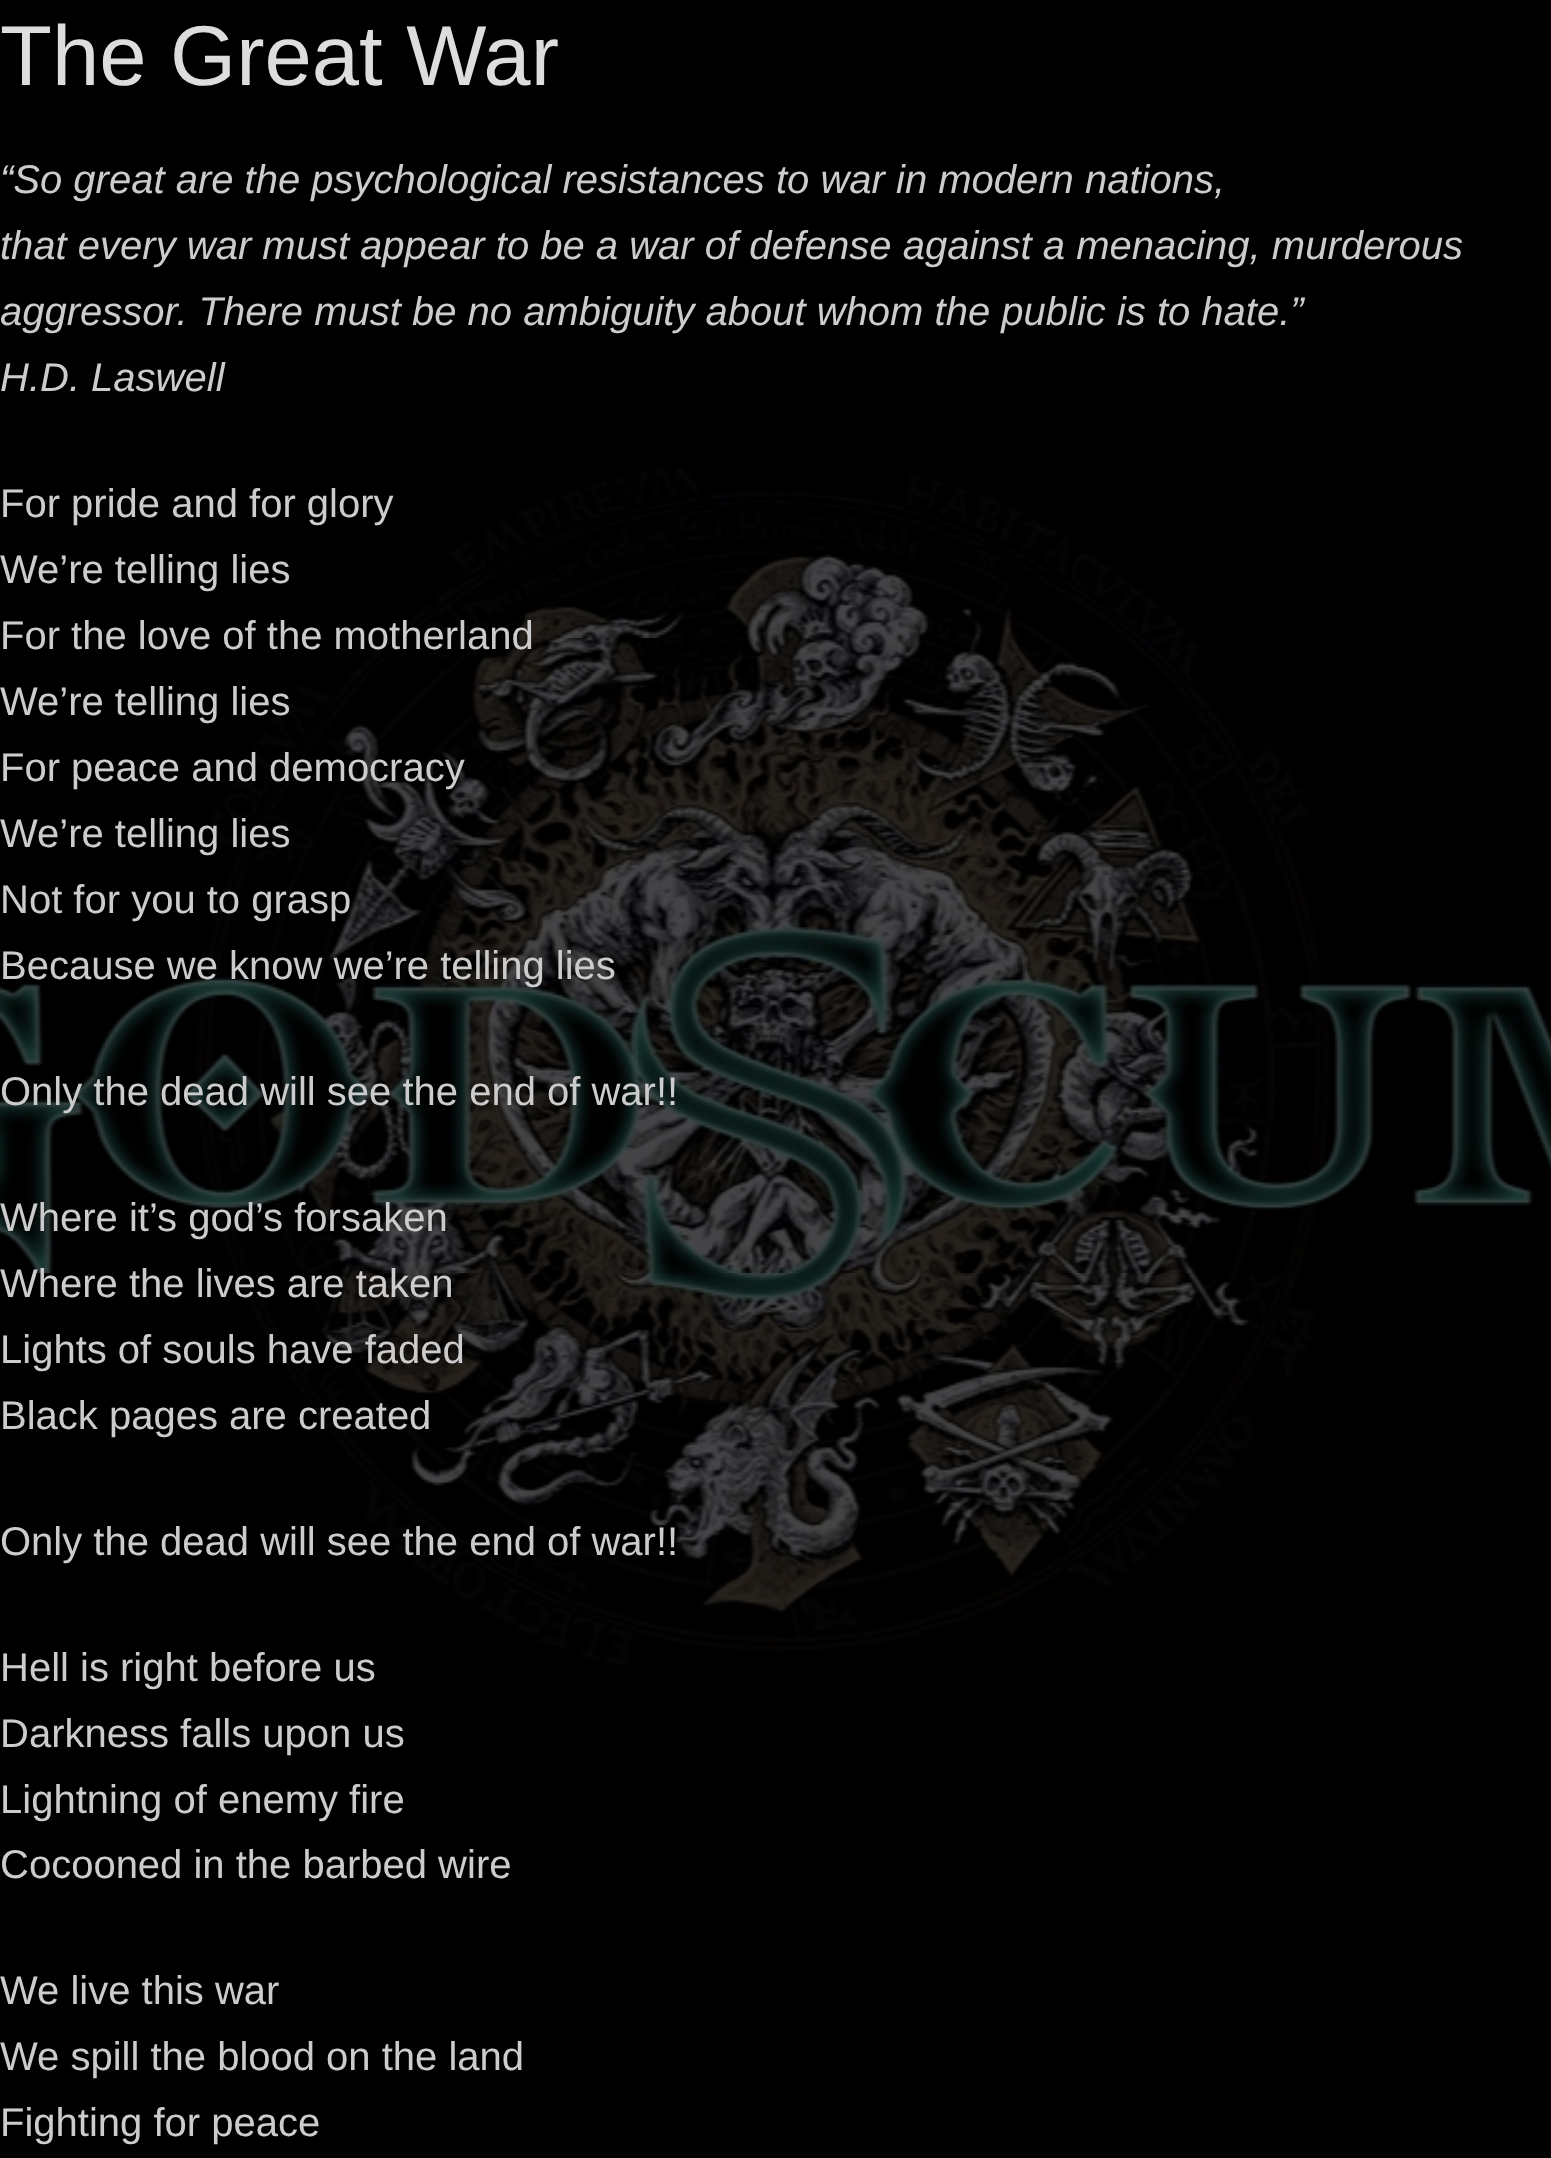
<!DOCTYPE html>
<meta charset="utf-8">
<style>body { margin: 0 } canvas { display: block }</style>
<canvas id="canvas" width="1551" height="2158"></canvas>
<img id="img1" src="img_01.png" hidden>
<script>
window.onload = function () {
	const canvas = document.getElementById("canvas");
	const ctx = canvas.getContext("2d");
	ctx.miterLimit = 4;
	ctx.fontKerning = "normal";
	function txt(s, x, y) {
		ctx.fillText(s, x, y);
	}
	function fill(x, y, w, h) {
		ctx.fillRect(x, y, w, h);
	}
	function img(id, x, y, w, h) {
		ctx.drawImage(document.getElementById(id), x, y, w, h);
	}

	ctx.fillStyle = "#000000";
	fill(0, 0, 1551, 2158);
	img("img1", 0, 468, 1551, 1197);
	ctx.font = "85px Liberation Sans";
	ctx.fillStyle = "#DDDDDD";
	txt("The Great War", 0, 85);
	ctx.font = "italic 40px Liberation Sans";
	ctx.fillStyle = "#CCCCCC";
	txt("“So great are the psychological resistances to war in modern nations,", 0, 193);
	txt("that every war must appear to be a war of defense against a menacing, murderous", 0, 259);
	txt("aggressor. There must be no ambiguity about whom the public is to hate.”", 0, 325);
	txt("H.D. Laswell", 0, 391);
	ctx.font = "40px Liberation Sans";
	txt("For pride and for glory", 0, 517);
	txt("We’re telling lies", 0, 583);
	txt("For the love of the motherland", 0, 649);
	txt("We’re telling lies", 0, 715);
	txt("For peace and democracy", 0, 781);
	txt("We’re telling lies", 0, 847);
	txt("Not for you to grasp", 0, 913);
	txt("Because we know we’re telling lies", 0, 979);
	txt("Only the dead will see the end of war!!", 0, 1105);
	txt("Where it’s god’s forsaken", 0, 1231);
	txt("Where the lives are taken", 0, 1297);
	txt("Lights of souls have faded", 0, 1363);
	txt("Black pages are created", 0, 1429);
	txt("Only the dead will see the end of war!!", 0, 1555);
	txt("Hell is right before us", 0, 1681);
	txt("Darkness falls upon us", 0, 1747);
	txt("Lightning of enemy fire", 0, 1813);
	txt("Cocooned in the barbed wire", 0, 1878);
	txt("We live this war", 0, 2004);
	txt("We spill the blood on the land", 0, 2070);
	txt("Fighting for peace", 0, 2136);
};
</script>
